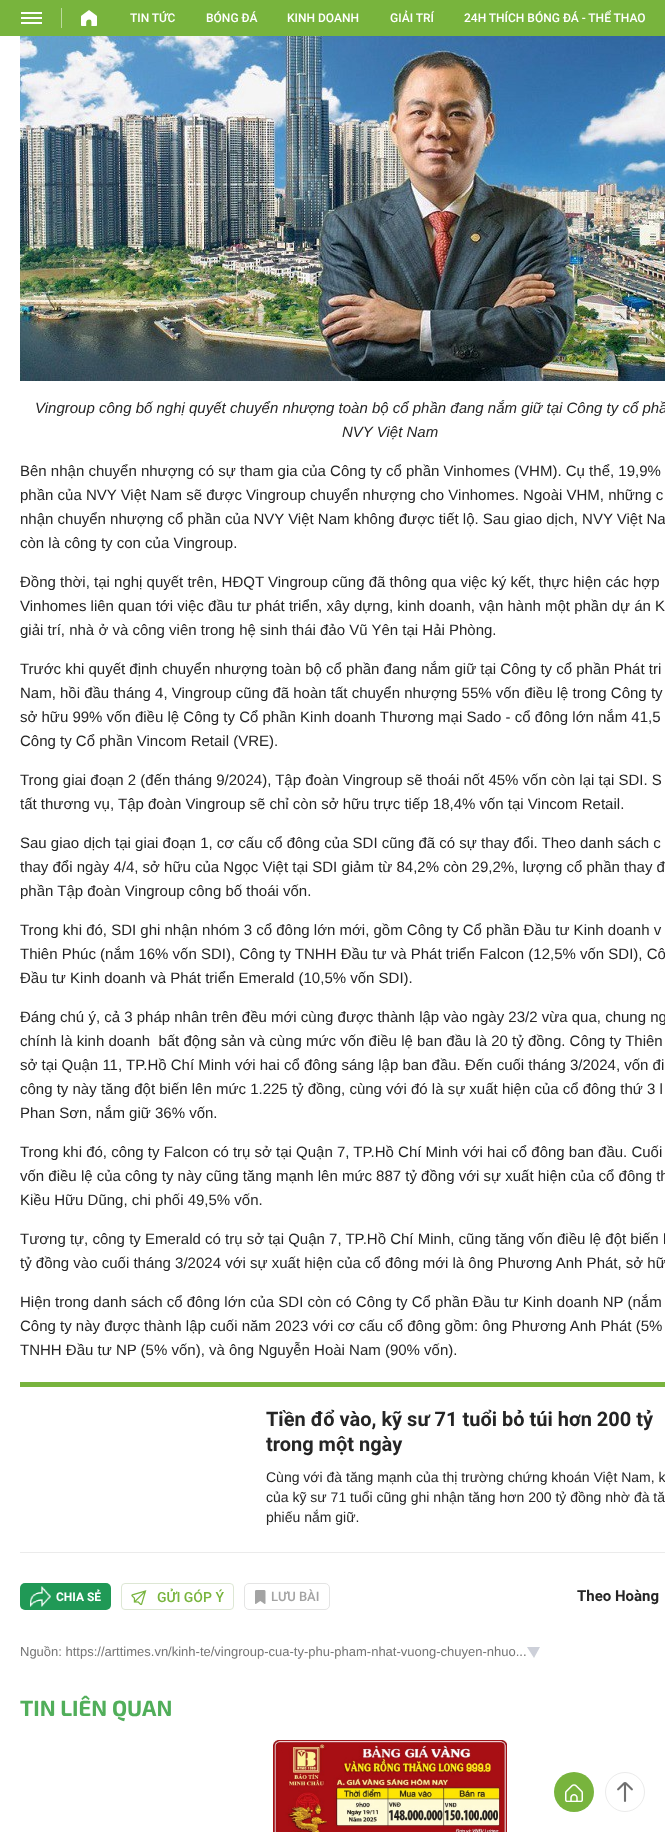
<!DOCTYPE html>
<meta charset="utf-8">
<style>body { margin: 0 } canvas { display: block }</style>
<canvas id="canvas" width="665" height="1832"></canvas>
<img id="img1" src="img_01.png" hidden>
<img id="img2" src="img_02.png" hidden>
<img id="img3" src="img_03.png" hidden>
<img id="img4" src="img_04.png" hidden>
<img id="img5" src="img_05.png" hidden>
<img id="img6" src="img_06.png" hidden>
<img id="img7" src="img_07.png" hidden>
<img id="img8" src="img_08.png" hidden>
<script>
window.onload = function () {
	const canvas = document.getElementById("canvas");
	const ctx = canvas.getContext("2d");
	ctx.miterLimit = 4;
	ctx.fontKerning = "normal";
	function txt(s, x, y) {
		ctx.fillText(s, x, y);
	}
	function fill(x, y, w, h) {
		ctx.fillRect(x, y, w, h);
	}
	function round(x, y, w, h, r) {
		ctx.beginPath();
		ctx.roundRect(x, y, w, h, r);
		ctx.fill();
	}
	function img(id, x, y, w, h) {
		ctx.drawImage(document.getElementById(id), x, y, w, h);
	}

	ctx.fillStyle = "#FFFFFF";
	fill(0, 0, 665, 1832);
	ctx.fillStyle = "#78B43D";
	fill(0, 0, 665, 36);
	ctx.fillStyle = "#FFFFFF";
	fill(21, 12, 21, 2);
	fill(21, 17, 21, 2);
	fill(21, 22, 21, 2);
	ctx.fillStyle = "#BCDA9E";
	fill(61, 8, 1, 20);
	img("img1", 81, 10, 16, 16);
	img("img2", 20, 36, 645, 345);
	ctx.fillStyle = "#78B43D";
	ctx.beginPath();
	ctx.moveTo(20, 1382);
	ctx.lineTo(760, 1382);
	ctx.lineTo(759, 1387);
	ctx.lineTo(20, 1387);
	ctx.closePath();
	ctx.fill();
	ctx.fillStyle = "#EBEBEB";
	fill(20, 1552, 645, 1);
	ctx.fillStyle = "#209956";
	round(20, 1583, 91, 27, 5);
	img("img3", 30, 1586, 21, 21);
	ctx.beginPath();
	ctx.roundRect(121.5, 1583.5, 112, 26, 3.5);
	ctx.strokeStyle = "#DDE7D4";
	ctx.stroke();
	img("img4", 131, 1590, 16, 15);
	ctx.beginPath();
	ctx.roundRect(244.5, 1583.5, 85, 26, 4.5);
	ctx.strokeStyle = "#E4E4E4";
	ctx.stroke();
	img("img5", 255, 1590, 11, 14);
	ctx.fillStyle = "#CDD0D9";
	ctx.beginPath();
	ctx.moveTo(527, 1647);
	ctx.lineTo(540, 1647);
	ctx.lineTo(534, 1658);
	ctx.closePath();
	ctx.fill();
	img("img6", 273, 1740, 234, 92);
	ctx.beginPath();
	ctx.arc(625, 1792, 19.5, 0, Math.PI * 2);
	ctx.strokeStyle = "#EBEBEB";
	ctx.stroke();
	img("img7", 617, 1782, 16, 20);
	ctx.fillStyle = "#78B43D";
	ctx.beginPath();
	ctx.arc(574, 1792, 20, 0, Math.PI * 2);
	ctx.fill();
	img("img8", 565, 1784, 18, 18);
	ctx.font = "500 12px Roboto";
	ctx.fillStyle = "#FFFFFF";
	txt("TIN TỨC", 130, 22);
	txt("BÓNG ĐÁ", 206, 22);
	txt("KINH DOANH", 287, 22);
	txt("GIẢI TRÍ", 390, 22);
	txt("24H THÍCH BÓNG ĐÁ - THỂ THAO", 464, 22);
	ctx.font = "italic 15px Liberation Sans";
	ctx.fillStyle = "#252525";
	txt("Vingroup công bố nghị quyết chuyển nhượng toàn bộ cổ phần đang nắm giữ tại Công ty cổ phầ", 35, 413);
	txt("NVY Việt Nam", 342, 437);
	ctx.font = "15px Liberation Sans";
	txt("Bên nhận chuyển nhượng có sự tham gia của Công ty cổ phần Vinhomes (VHM). Cụ thể, 19,9%", 20, 476);
	txt("phần của NVY Việt Nam sẽ được Vingroup chuyển nhượng cho Vinhomes. Ngoài VHM, những c", 20, 500);
	txt("nhận chuyển nhượng cổ phần của NVY Việt Nam không được tiết lộ. Sau giao dịch, NVY Việt Na", 20, 524);
	txt("còn là công ty con của Vingroup.", 20, 548);
	txt("Đồng thời, tại nghị quyết trên, HĐQT Vingroup cũng đã thông qua việc ký kết, thực hiện các hợp", 20, 587);
	txt("Vinhomes liên quan tới việc đầu tư phát triển, xây dựng, kinh doanh, vận hành một phần dự án K", 20, 611);
	txt("giải trí, nhà ở và công viên trong hệ sinh thái đảo Vũ Yên tại Hải Phòng.", 20, 635);
	txt("Trước khi quyết định chuyển nhượng toàn bộ cổ phần đang nắm giữ tại Công ty cổ phần Phát tri", 20, 674);
	txt("Nam, hồi đầu tháng 4, Vingroup cũng đã hoàn tất chuyển nhượng 55% vốn điều lệ trong Công ty", 20, 698);
	txt("sở hữu 99% vốn điều lệ Công ty Cổ phần Kinh doanh Thương mại Sado - cổ đông lớn nắm 41,5", 20, 722);
	txt("Công ty Cổ phần Vincom Retail (VRE).", 20, 746);
	txt("Trong giai đoạn 2 (đến tháng 9/2024), Tập đoàn Vingroup sẽ thoái nốt 45% vốn còn lại tại SDI. S", 20, 785);
	txt("tất thương vụ, Tập đoàn Vingroup sẽ chỉ còn sở hữu trực tiếp 18,4% vốn tại Vincom Retail.", 20, 809);
	txt("Sau giao dịch tại giai đoạn 1, cơ cấu cổ đông của SDI cũng đã có sự thay đổi. Theo danh sách c", 20, 848);
	txt("thay đổi ngày 4/4, sở hữu của Ngọc Việt tại SDI giảm từ 84,2% còn 29,2%, lượng cổ phần thay đ", 20, 872);
	txt("phần Tập đoàn Vingroup công bố thoái vốn.", 20, 896);
	txt("Trong khi đó, SDI ghi nhận nhóm 3 cổ đông lớn mới, gồm Công ty Cổ phần Đầu tư Kinh doanh v", 20, 935);
	txt("Thiên Phúc (nắm 16% vốn SDI), Công ty TNHH Đầu tư và Phát triển Falcon (12,5% vốn SDI), Cô", 20, 959);
	txt("Đầu tư Kinh doanh và Phát triển Emerald (10,5% vốn SDI).", 20, 983);
	txt("Đáng chú ý, cả 3 pháp nhân trên đều mới cùng được thành lập vào ngày 23/2 vừa qua, chung ng", 20, 1022);
	txt("chính là kinh doanh  bất động sản và cùng mức vốn điều lệ ban đầu là 20 tỷ đồng. Công ty Thiên", 20, 1046);
	txt("sở tại Quận 11, TP.Hồ Chí Minh với hai cổ đông sáng lập ban đầu. Đến cuối tháng 3/2024, vốn đi", 20, 1070);
	txt("công ty này tăng đột biến lên mức 1.225 tỷ đồng, cùng với đó là sự xuất hiện của cổ đông thứ 3 l", 20, 1094);
	txt("Phan Sơn, nắm giữ 36% vốn.", 20, 1118);
	txt("Trong khi đó, công ty Falcon có trụ sở tại Quận 7, TP.Hồ Chí Minh với hai cổ đông ban đầu. Cuối", 20, 1157);
	txt("vốn điều lệ của công ty này cũng tăng mạnh lên mức 887 tỷ đồng với sự xuất hiện của cổ đông th", 20, 1181);
	txt("Kiều Hữu Dũng, chi phối 49,5% vốn.", 20, 1205);
	txt("Tương tự, công ty Emerald có trụ sở tại Quận 7, TP.Hồ Chí Minh, cũng tăng vốn điều lệ đột biến l", 20, 1244);
	txt("tỷ đồng vào cuối tháng 3/2024 với sự xuất hiện của cổ đông mới là ông Phương Anh Phát, sở hữ", 20, 1268);
	txt("Hiện trong danh sách cổ đông lớn của SDI còn có Công ty Cổ phần Đầu tư Kinh doanh NP (nắm", 20, 1307);
	txt("Công ty này được thành lập cuối năm 2023 với cơ cấu cổ đông gồm: ông Phương Anh Phát (5%", 20, 1331);
	txt("TNHH Đầu tư NP (5% vốn), và ông Nguyễn Hoài Nam (90% vốn).", 20, 1355);
	ctx.font = "bold 20px Roboto";
	txt("Tiền đổ vào, kỹ sư 71 tuổi bỏ túi hơn 200 tỷ", 266, 1426);
	txt("trong một ngày", 266, 1451);
	ctx.font = "14px Liberation Sans";
	txt("Cùng với đà tăng mạnh của thị trường chứng khoán Việt Nam, k", 266, 1482);
	txt("của kỹ sư 71 tuổi cũng ghi nhận tăng hơn 200 tỷ đồng nhờ đà tă", 266, 1502);
	txt("phiếu nắm giữ.", 266, 1522);
	ctx.font = "bold 12px Roboto";
	ctx.fillStyle = "#FFFFFF";
	txt("CHIA SẺ", 56, 1601);
	ctx.font = "500 14px Roboto";
	ctx.fillStyle = "#78B43D";
	txt("GỬI GÓP Ý", 157, 1602);
	ctx.font = "500 13px Roboto";
	ctx.fillStyle = "#A3A3A3";
	txt("LƯU BÀI", 271, 1601);
	ctx.font = "bold 15px Roboto";
	ctx.fillStyle = "#252525";
	txt("Theo Hoàng", 577, 1601);
	ctx.font = "13px Liberation Sans";
	ctx.fillStyle = "#757575";
	txt("Nguồn: https://arttimes.vn/kinh-te/vingroup-cua-ty-phu-pham-nhat-vuong-chuyen-nhuo...", 20, 1656);
	ctx.font = "bold 22px 'Exo 2'";
	ctx.fillStyle = "#51AE5A";
	txt("TIN LIÊN QUAN", 20, 1716);
};
</script>
